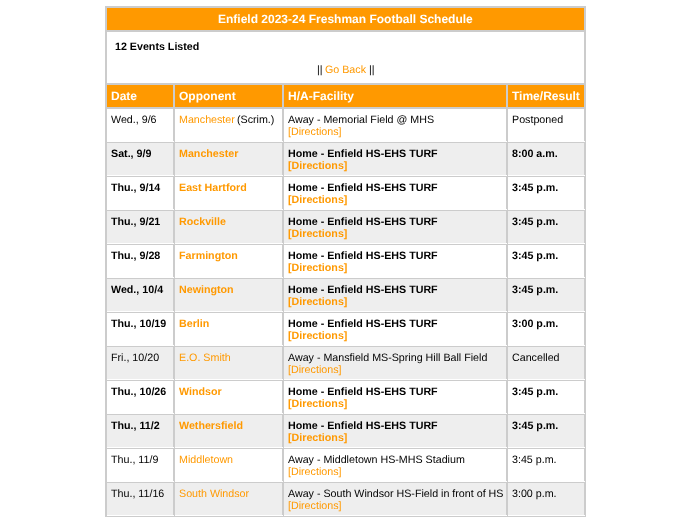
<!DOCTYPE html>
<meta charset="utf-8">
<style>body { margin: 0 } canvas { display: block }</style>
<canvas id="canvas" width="691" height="520"></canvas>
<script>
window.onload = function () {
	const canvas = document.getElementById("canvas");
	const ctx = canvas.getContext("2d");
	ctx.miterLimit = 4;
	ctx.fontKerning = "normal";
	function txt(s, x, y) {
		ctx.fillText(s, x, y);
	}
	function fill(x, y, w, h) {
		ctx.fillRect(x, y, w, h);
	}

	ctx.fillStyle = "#FFFFFF";
	fill(0, 0, 691, 520);
	ctx.fillStyle = "#CCCCCC";
	fill(105, 6, 481, 511);
	ctx.fillStyle = "#FF9900";
	fill(107, 8, 477, 22);
	ctx.fillStyle = "#FFFFFF";
	fill(107, 32, 477, 51);
	ctx.fillStyle = "#FF9900";
	fill(107, 85, 66, 22);
	fill(175, 85, 107, 22);
	fill(284, 85, 222, 22);
	fill(508, 85, 76, 22);
	ctx.fillStyle = "#FFFFFF";
	fill(107, 109, 477, 32);
	ctx.fillStyle = "#CCCCCC";
	fill(173, 108, 1, 34);
	ctx.fillStyle = "#FFFFFF";
	fill(106, 141, 68, 1);
	ctx.fillStyle = "#CCCCCC";
	fill(106, 141, 1, 1);
	fill(282, 108, 1, 34);
	ctx.fillStyle = "#FFFFFF";
	fill(174, 141, 109, 1);
	ctx.fillStyle = "#CCCCCC";
	fill(174, 108, 1, 34);
	fill(506, 108, 1, 34);
	ctx.fillStyle = "#FFFFFF";
	fill(283, 141, 302, 1);
	ctx.fillStyle = "#CCCCCC";
	fill(283, 108, 1, 34);
	fill(507, 108, 1, 34);
	ctx.fillStyle = "#EEEEEE";
	fill(107, 143, 477, 32);
	ctx.fillStyle = "#CCCCCC";
	fill(173, 142, 1, 34);
	ctx.fillStyle = "#FFFFFF";
	fill(106, 175, 68, 1);
	ctx.fillStyle = "#CCCCCC";
	fill(106, 175, 1, 1);
	fill(282, 142, 1, 34);
	ctx.fillStyle = "#FFFFFF";
	fill(174, 175, 109, 1);
	ctx.fillStyle = "#CCCCCC";
	fill(174, 142, 1, 34);
	fill(506, 142, 1, 34);
	ctx.fillStyle = "#FFFFFF";
	fill(283, 175, 302, 1);
	ctx.fillStyle = "#CCCCCC";
	fill(283, 142, 1, 34);
	fill(507, 142, 1, 34);
	ctx.fillStyle = "#FFFFFF";
	fill(107, 177, 477, 32);
	ctx.fillStyle = "#CCCCCC";
	fill(173, 176, 1, 34);
	ctx.fillStyle = "#FFFFFF";
	fill(106, 209, 68, 1);
	ctx.fillStyle = "#CCCCCC";
	fill(106, 209, 1, 1);
	fill(282, 176, 1, 34);
	ctx.fillStyle = "#FFFFFF";
	fill(174, 209, 109, 1);
	ctx.fillStyle = "#CCCCCC";
	fill(174, 176, 1, 34);
	fill(506, 176, 1, 34);
	ctx.fillStyle = "#FFFFFF";
	fill(283, 209, 302, 1);
	ctx.fillStyle = "#CCCCCC";
	fill(283, 176, 1, 34);
	fill(507, 176, 1, 34);
	ctx.fillStyle = "#EEEEEE";
	fill(107, 211, 477, 32);
	ctx.fillStyle = "#CCCCCC";
	fill(173, 210, 1, 34);
	ctx.fillStyle = "#FFFFFF";
	fill(106, 243, 68, 1);
	ctx.fillStyle = "#CCCCCC";
	fill(106, 243, 1, 1);
	fill(282, 210, 1, 34);
	ctx.fillStyle = "#FFFFFF";
	fill(174, 243, 109, 1);
	ctx.fillStyle = "#CCCCCC";
	fill(174, 210, 1, 34);
	fill(506, 210, 1, 34);
	ctx.fillStyle = "#FFFFFF";
	fill(283, 243, 302, 1);
	ctx.fillStyle = "#CCCCCC";
	fill(283, 210, 1, 34);
	fill(507, 210, 1, 34);
	ctx.fillStyle = "#FFFFFF";
	fill(107, 245, 477, 32);
	ctx.fillStyle = "#CCCCCC";
	fill(173, 244, 1, 34);
	ctx.fillStyle = "#FFFFFF";
	fill(106, 277, 68, 1);
	ctx.fillStyle = "#CCCCCC";
	fill(106, 277, 1, 1);
	fill(282, 244, 1, 34);
	ctx.fillStyle = "#FFFFFF";
	fill(174, 277, 109, 1);
	ctx.fillStyle = "#CCCCCC";
	fill(174, 244, 1, 34);
	fill(506, 244, 1, 34);
	ctx.fillStyle = "#FFFFFF";
	fill(283, 277, 302, 1);
	ctx.fillStyle = "#CCCCCC";
	fill(283, 244, 1, 34);
	fill(507, 244, 1, 34);
	ctx.fillStyle = "#EEEEEE";
	fill(107, 279, 477, 32);
	ctx.fillStyle = "#CCCCCC";
	fill(173, 278, 1, 34);
	ctx.fillStyle = "#FFFFFF";
	fill(106, 311, 68, 1);
	ctx.fillStyle = "#CCCCCC";
	fill(106, 311, 1, 1);
	fill(282, 278, 1, 34);
	ctx.fillStyle = "#FFFFFF";
	fill(174, 311, 109, 1);
	ctx.fillStyle = "#CCCCCC";
	fill(174, 278, 1, 34);
	fill(506, 278, 1, 34);
	ctx.fillStyle = "#FFFFFF";
	fill(283, 311, 302, 1);
	ctx.fillStyle = "#CCCCCC";
	fill(283, 278, 1, 34);
	fill(507, 278, 1, 34);
	ctx.fillStyle = "#FFFFFF";
	fill(107, 313, 477, 32);
	ctx.fillStyle = "#CCCCCC";
	fill(173, 312, 1, 34);
	ctx.fillStyle = "#FFFFFF";
	fill(106, 345, 68, 1);
	ctx.fillStyle = "#CCCCCC";
	fill(106, 345, 1, 1);
	fill(282, 312, 1, 34);
	ctx.fillStyle = "#FFFFFF";
	fill(174, 345, 109, 1);
	ctx.fillStyle = "#CCCCCC";
	fill(174, 312, 1, 34);
	fill(506, 312, 1, 34);
	ctx.fillStyle = "#FFFFFF";
	fill(283, 345, 302, 1);
	ctx.fillStyle = "#CCCCCC";
	fill(283, 312, 1, 34);
	fill(507, 312, 1, 34);
	ctx.fillStyle = "#EEEEEE";
	fill(107, 347, 477, 32);
	ctx.fillStyle = "#CCCCCC";
	fill(173, 346, 1, 34);
	ctx.fillStyle = "#FFFFFF";
	fill(106, 379, 68, 1);
	ctx.fillStyle = "#CCCCCC";
	fill(106, 379, 1, 1);
	fill(282, 346, 1, 34);
	ctx.fillStyle = "#FFFFFF";
	fill(174, 379, 109, 1);
	ctx.fillStyle = "#CCCCCC";
	fill(174, 346, 1, 34);
	fill(506, 346, 1, 34);
	ctx.fillStyle = "#FFFFFF";
	fill(283, 379, 302, 1);
	ctx.fillStyle = "#CCCCCC";
	fill(283, 346, 1, 34);
	fill(507, 346, 1, 34);
	ctx.fillStyle = "#FFFFFF";
	fill(107, 381, 477, 32);
	ctx.fillStyle = "#CCCCCC";
	fill(173, 380, 1, 34);
	ctx.fillStyle = "#FFFFFF";
	fill(106, 413, 68, 1);
	ctx.fillStyle = "#CCCCCC";
	fill(106, 413, 1, 1);
	fill(282, 380, 1, 34);
	ctx.fillStyle = "#FFFFFF";
	fill(174, 413, 109, 1);
	ctx.fillStyle = "#CCCCCC";
	fill(174, 380, 1, 34);
	fill(506, 380, 1, 34);
	ctx.fillStyle = "#FFFFFF";
	fill(283, 413, 302, 1);
	ctx.fillStyle = "#CCCCCC";
	fill(283, 380, 1, 34);
	fill(507, 380, 1, 34);
	ctx.fillStyle = "#EEEEEE";
	fill(107, 415, 477, 32);
	ctx.fillStyle = "#CCCCCC";
	fill(173, 414, 1, 34);
	ctx.fillStyle = "#FFFFFF";
	fill(106, 447, 68, 1);
	ctx.fillStyle = "#CCCCCC";
	fill(106, 447, 1, 1);
	fill(282, 414, 1, 34);
	ctx.fillStyle = "#FFFFFF";
	fill(174, 447, 109, 1);
	ctx.fillStyle = "#CCCCCC";
	fill(174, 414, 1, 34);
	fill(506, 414, 1, 34);
	ctx.fillStyle = "#FFFFFF";
	fill(283, 447, 302, 1);
	ctx.fillStyle = "#CCCCCC";
	fill(283, 414, 1, 34);
	fill(507, 414, 1, 34);
	ctx.fillStyle = "#FFFFFF";
	fill(107, 449, 477, 32);
	ctx.fillStyle = "#CCCCCC";
	fill(173, 448, 1, 34);
	ctx.fillStyle = "#FFFFFF";
	fill(106, 481, 68, 1);
	ctx.fillStyle = "#CCCCCC";
	fill(106, 481, 1, 1);
	fill(282, 448, 1, 34);
	ctx.fillStyle = "#FFFFFF";
	fill(174, 481, 109, 1);
	ctx.fillStyle = "#CCCCCC";
	fill(174, 448, 1, 34);
	fill(506, 448, 1, 34);
	ctx.fillStyle = "#FFFFFF";
	fill(283, 481, 302, 1);
	ctx.fillStyle = "#CCCCCC";
	fill(283, 448, 1, 34);
	fill(507, 448, 1, 34);
	ctx.fillStyle = "#EEEEEE";
	fill(107, 483, 477, 32);
	ctx.fillStyle = "#CCCCCC";
	fill(173, 482, 1, 34);
	ctx.fillStyle = "#FFFFFF";
	fill(106, 515, 68, 1);
	ctx.fillStyle = "#CCCCCC";
	fill(106, 515, 1, 1);
	fill(282, 482, 1, 34);
	ctx.fillStyle = "#FFFFFF";
	fill(174, 515, 109, 1);
	ctx.fillStyle = "#CCCCCC";
	fill(174, 482, 1, 34);
	fill(506, 482, 1, 34);
	ctx.fillStyle = "#FFFFFF";
	fill(283, 515, 302, 1);
	ctx.fillStyle = "#CCCCCC";
	fill(283, 482, 1, 34);
	fill(507, 482, 1, 34);
	ctx.font = "bold 12px Liberation Sans";
	ctx.fillStyle = "#FFFFFF";
	txt("Enfield 2023-24 Freshman Football Schedule", 218, 23);
	ctx.font = "bold 10.7px Liberation Sans";
	ctx.fillStyle = "#000000";
	txt("12 Events Listed", 115, 50);
	ctx.font = "10.7px Liberation Sans";
	txt("||", 317, 73);
	ctx.fillStyle = "#FF9900";
	txt("Go Back", 325, 73);
	ctx.fillStyle = "#000000";
	txt("||", 369, 73);
	ctx.font = "bold 12px Liberation Sans";
	ctx.fillStyle = "#FFFFFF";
	txt("Date", 111, 100);
	txt("Opponent", 179, 100);
	txt("H/A-Facility", 288, 100);
	txt("Time/Result", 512, 100);
	ctx.font = "10.7px Liberation Sans";
	ctx.fillStyle = "#000000";
	txt("Wed., 9/6", 111, 123);
	ctx.fillStyle = "#FF9900";
	txt("Manchester", 179, 123);
	ctx.fillStyle = "#000000";
	txt("(Scrim.)", 237, 123);
	txt("Away - Memorial Field @ MHS", 288, 123);
	ctx.fillStyle = "#FF9900";
	txt("[Directions]", 288, 135);
	ctx.fillStyle = "#000000";
	txt("Postponed", 512, 123);
	ctx.font = "bold 10.7px Liberation Sans";
	txt("Sat., 9/9", 111, 157);
	ctx.fillStyle = "#FF9900";
	txt("Manchester", 179, 157);
	ctx.fillStyle = "#000000";
	txt("Home - Enfield HS-EHS TURF", 288, 157);
	ctx.fillStyle = "#FF9900";
	txt("[Directions]", 288, 169);
	ctx.fillStyle = "#000000";
	txt("8:00 a.m.", 512, 157);
	txt("Thu., 9/14", 111, 191);
	ctx.fillStyle = "#FF9900";
	txt("East Hartford", 179, 191);
	ctx.fillStyle = "#000000";
	txt("Home - Enfield HS-EHS TURF", 288, 191);
	ctx.fillStyle = "#FF9900";
	txt("[Directions]", 288, 203);
	ctx.fillStyle = "#000000";
	txt("3:45 p.m.", 512, 191);
	txt("Thu., 9/21", 111, 225);
	ctx.fillStyle = "#FF9900";
	txt("Rockville", 179, 225);
	ctx.fillStyle = "#000000";
	txt("Home - Enfield HS-EHS TURF", 288, 225);
	ctx.fillStyle = "#FF9900";
	txt("[Directions]", 288, 237);
	ctx.fillStyle = "#000000";
	txt("3:45 p.m.", 512, 225);
	txt("Thu., 9/28", 111, 259);
	ctx.fillStyle = "#FF9900";
	txt("Farmington", 179, 259);
	ctx.fillStyle = "#000000";
	txt("Home - Enfield HS-EHS TURF", 288, 259);
	ctx.fillStyle = "#FF9900";
	txt("[Directions]", 288, 271);
	ctx.fillStyle = "#000000";
	txt("3:45 p.m.", 512, 259);
	txt("Wed., 10/4", 111, 293);
	ctx.fillStyle = "#FF9900";
	txt("Newington", 179, 293);
	ctx.fillStyle = "#000000";
	txt("Home - Enfield HS-EHS TURF", 288, 293);
	ctx.fillStyle = "#FF9900";
	txt("[Directions]", 288, 305);
	ctx.fillStyle = "#000000";
	txt("3:45 p.m.", 512, 293);
	txt("Thu., 10/19", 111, 327);
	ctx.fillStyle = "#FF9900";
	txt("Berlin", 179, 327);
	ctx.fillStyle = "#000000";
	txt("Home - Enfield HS-EHS TURF", 288, 327);
	ctx.fillStyle = "#FF9900";
	txt("[Directions]", 288, 339);
	ctx.fillStyle = "#000000";
	txt("3:00 p.m.", 512, 327);
	ctx.font = "10.7px Liberation Sans";
	txt("Fri., 10/20", 111, 361);
	ctx.fillStyle = "#FF9900";
	txt("E.O. Smith", 179, 361);
	ctx.fillStyle = "#000000";
	txt("Away - Mansfield MS-Spring Hill Ball Field", 288, 361);
	ctx.fillStyle = "#FF9900";
	txt("[Directions]", 288, 373);
	ctx.fillStyle = "#000000";
	txt("Cancelled", 512, 361);
	ctx.font = "bold 10.7px Liberation Sans";
	txt("Thu., 10/26", 111, 395);
	ctx.fillStyle = "#FF9900";
	txt("Windsor", 179, 395);
	ctx.fillStyle = "#000000";
	txt("Home - Enfield HS-EHS TURF", 288, 395);
	ctx.fillStyle = "#FF9900";
	txt("[Directions]", 288, 407);
	ctx.fillStyle = "#000000";
	txt("3:45 p.m.", 512, 395);
	txt("Thu., 11/2", 111, 429);
	ctx.fillStyle = "#FF9900";
	txt("Wethersfield", 179, 429);
	ctx.fillStyle = "#000000";
	txt("Home - Enfield HS-EHS TURF", 288, 429);
	ctx.fillStyle = "#FF9900";
	txt("[Directions]", 288, 441);
	ctx.fillStyle = "#000000";
	txt("3:45 p.m.", 512, 429);
	ctx.font = "10.7px Liberation Sans";
	txt("Thu., 11/9", 111, 463);
	ctx.fillStyle = "#FF9900";
	txt("Middletown", 179, 463);
	ctx.fillStyle = "#000000";
	txt("Away - Middletown HS-MHS Stadium", 288, 463);
	ctx.fillStyle = "#FF9900";
	txt("[Directions]", 288, 475);
	ctx.fillStyle = "#000000";
	txt("3:45 p.m.", 512, 463);
	txt("Thu., 11/16", 111, 497);
	ctx.fillStyle = "#FF9900";
	txt("South Windsor", 179, 497);
	ctx.fillStyle = "#000000";
	txt("Away - South Windsor HS-Field in front of HS", 288, 497);
	ctx.fillStyle = "#FF9900";
	txt("[Directions]", 288, 509);
	ctx.fillStyle = "#000000";
	txt("3:00 p.m.", 512, 497);
};
</script>
